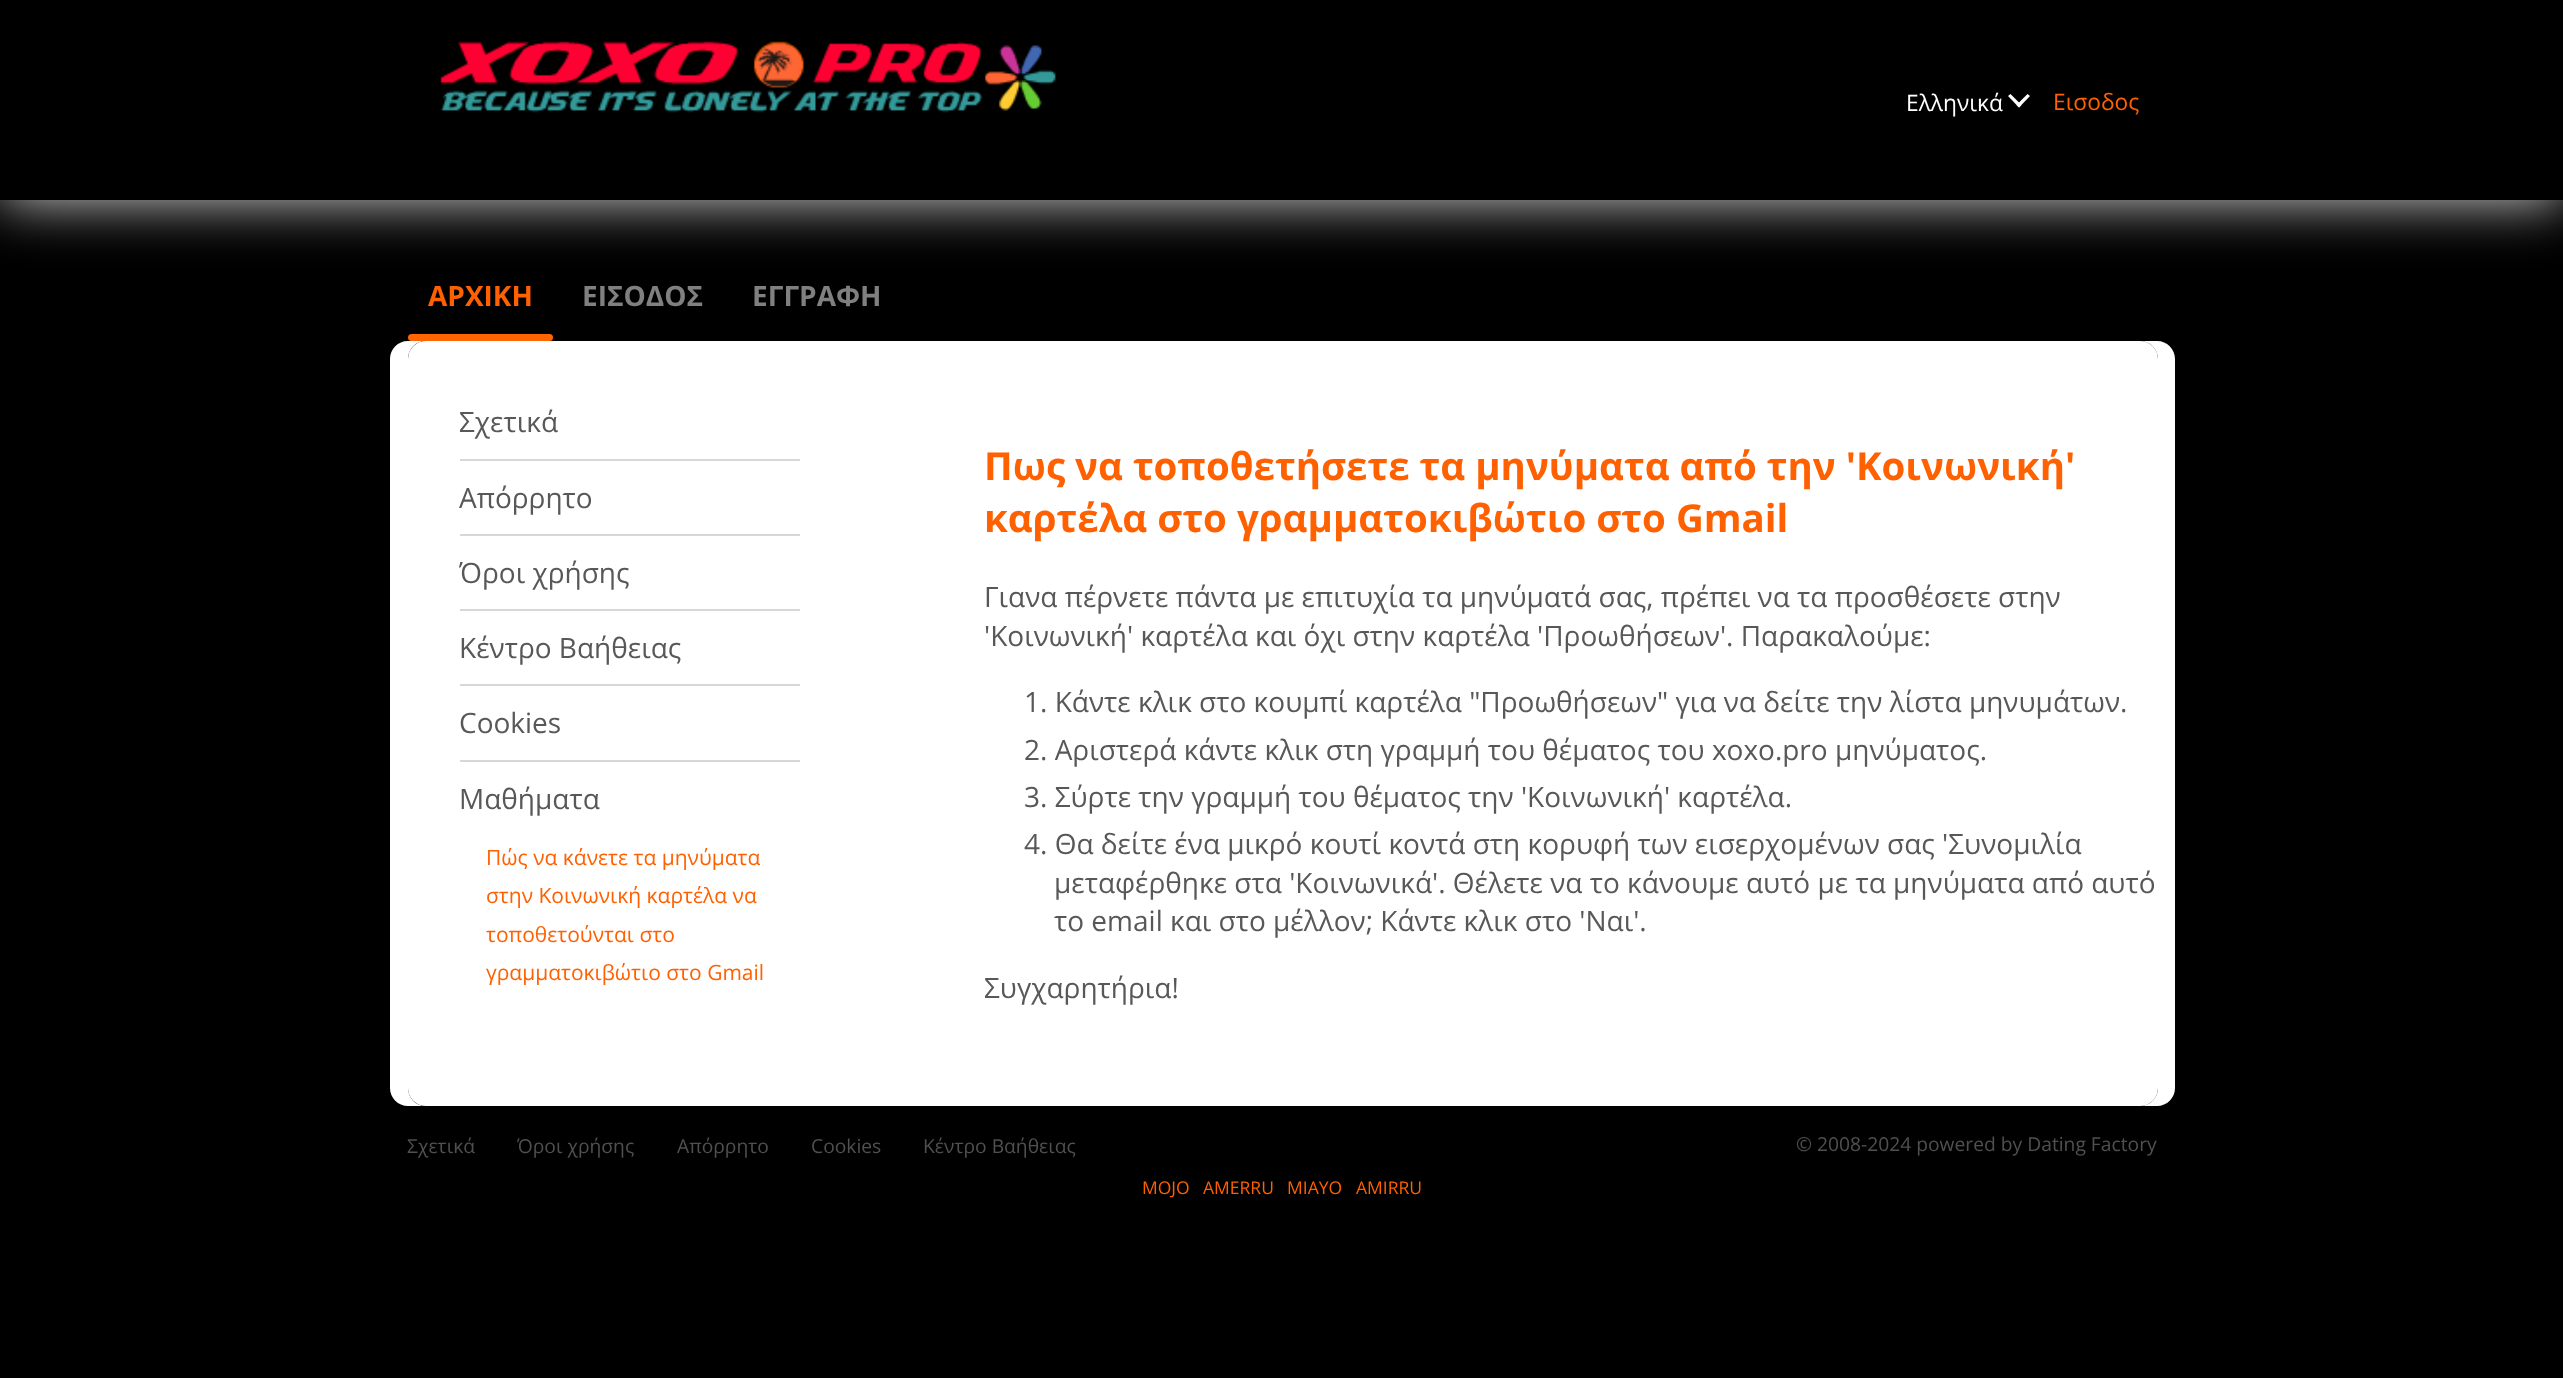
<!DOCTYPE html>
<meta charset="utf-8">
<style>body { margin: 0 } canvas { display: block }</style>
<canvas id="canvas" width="2563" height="1378"></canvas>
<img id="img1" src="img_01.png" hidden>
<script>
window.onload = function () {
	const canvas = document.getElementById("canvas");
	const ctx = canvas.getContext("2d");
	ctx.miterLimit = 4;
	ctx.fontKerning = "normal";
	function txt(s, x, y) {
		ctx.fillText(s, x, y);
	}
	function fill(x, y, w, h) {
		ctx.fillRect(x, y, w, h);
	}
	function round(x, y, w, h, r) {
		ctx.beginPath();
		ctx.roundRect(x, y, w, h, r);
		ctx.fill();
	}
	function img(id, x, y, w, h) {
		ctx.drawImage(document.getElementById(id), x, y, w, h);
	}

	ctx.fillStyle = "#000000";
	fill(0, 0, 2563, 1378);
	ctx.save();
	ctx.beginPath();
	ctx.moveTo(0, 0);
	ctx.lineTo(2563, 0);
	ctx.lineTo(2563, 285);
	ctx.lineTo(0, 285);
	ctx.closePath();
	ctx.moveTo(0, 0);
	ctx.lineTo(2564, 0);
	ctx.lineTo(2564, 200);
	ctx.lineTo(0, 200);
	ctx.closePath();
	ctx.clip("evenodd");
	ctx.fillStyle = "#D7D7D7";
	ctx.filter = "blur(28px)";
	ctx.beginPath();
	ctx.rect(0, 0, 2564, 200);
	ctx.fill();
	ctx.filter = "none";
	ctx.restore();
	img("img1", 440, 41, 616, 72);
	ctx.fillStyle = "#FFFFFF";
	ctx.beginPath();
	ctx.moveTo(2027.5, 94);
	ctx.lineTo(2030, 96);
	ctx.lineTo(2019, 107.5);
	ctx.lineTo(2016.5, 105);
	ctx.closePath();
	ctx.fill();
	ctx.beginPath();
	ctx.moveTo(2010.5, 94);
	ctx.lineTo(2021.5, 105);
	ctx.lineTo(2019, 107.5);
	ctx.lineTo(2008, 96);
	ctx.closePath();
	ctx.fill();
	ctx.fillStyle = "#FF6500";
	round(408, 334, 145, 7, 3.5);
	ctx.fillStyle = "#FFFFFF";
	ctx.beginPath();
	ctx.moveTo(408, 341);
	ctx.bezierCurveTo(398, 341, 390, 349, 390, 359);
	ctx.lineTo(390, 1088);
	ctx.bezierCurveTo(390, 1098, 398, 1106, 408, 1106);
	ctx.lineTo(425, 1106);
	ctx.bezierCurveTo(416, 1106, 408, 1098, 408, 1088);
	ctx.lineTo(408, 359);
	ctx.bezierCurveTo(408, 349, 416, 341, 425, 341);
	ctx.lineTo(2125, 341);
	ctx.lineTo(2122, 341);
	ctx.closePath();
	ctx.fill();
	ctx.beginPath();
	ctx.moveTo(443, 341);
	ctx.lineTo(440, 341);
	ctx.lineTo(2140, 341);
	ctx.bezierCurveTo(2150, 341, 2158, 349, 2158, 359);
	ctx.lineTo(2158, 1088);
	ctx.bezierCurveTo(2158, 1098, 2150, 1106, 2140, 1106);
	ctx.lineTo(2157, 1106);
	ctx.bezierCurveTo(2167, 1106, 2175, 1098, 2175, 1088);
	ctx.lineTo(2175, 359);
	ctx.bezierCurveTo(2175, 349, 2167, 341, 2157, 341);
	ctx.closePath();
	ctx.fill();
	round(408, 341, 1750, 765, 18);
	ctx.fillStyle = "#D7D7D7";
	fill(460, 459, 340, 2);
	fill(460, 534, 340, 2);
	fill(460, 609, 340, 2);
	fill(460, 684, 340, 2);
	fill(460, 760, 340, 2);
	ctx.font = "22.75px Open Sans";
	ctx.fillStyle = "#FFFFFF";
	txt("Ελληνικά", 1906, 111);
	ctx.fillStyle = "#FF6000";
	txt("Εισοδος", 2053, 110);
	ctx.font = "bold 28px Open Sans";
	txt("ΑΡΧΙΚΗ", 428, 306);
	ctx.fillStyle = "#808080";
	txt("ΕΙΣΟΔΟΣ", 582, 306);
	txt("ΕΓΓΡΑΦΗ", 752, 306);
	ctx.font = "28px Open Sans";
	ctx.fillStyle = "#585858";
	txt("Σχετικά", 459, 432);
	txt("Απόρρητο", 459, 508);
	txt("Όροι χρήσης", 459, 583);
	txt("Κέντρο Βαήθειας", 459, 658);
	txt("Cookies", 459, 733);
	txt("Μαθήματα", 459, 809);
	ctx.font = "21px Open Sans";
	ctx.fillStyle = "#FF6000";
	txt("Πώς να κάνετε τα μηνύματα", 486, 865);
	txt("στην Κοινωνική καρτέλα να", 486, 903);
	txt("τοποθετούνται στο", 486, 942);
	txt("γραμματοκιβώτιο στο Gmail", 486, 980);
	ctx.font = "bold 38.5px Open Sans";
	txt("Πως να τοποθετήσετε τα μηνύματα από την 'Κοινωνική'", 984, 480);
	txt("καρτέλα στο γραμματοκιβώτιο στο Gmail", 984, 532);
	ctx.font = "28px Open Sans";
	ctx.fillStyle = "#585858";
	txt("Γιανα πέρνετε πάντα με επιτυχία τα μηνύματά σας, πρέπει να τα προσθέσετε στην", 984, 607);
	txt("'Κοινωνική' καρτέλα και όχι στην καρτέλα 'Προωθήσεων'. Παρακαλούμε:", 984, 646);
	txt("1. Κάντε κλικ στο κουμπί καρτέλα \"Προωθήσεων\" για να δείτε την λίστα μηνυμάτων.", 1024, 712);
	txt("2. Αριστερά κάντε κλικ στη γραμμή του θέματος του xoxo.pro μηνύματος.", 1024, 760);
	txt("3. Σύρτε την γραμμή του θέματος την 'Κοινωνική' καρτέλα.", 1024, 807);
	txt("4. Θα δείτε ένα μικρό κουτί κοντά στη κορυφή των εισερχομένων σας 'Συνομιλία", 1024, 854);
	txt("μεταφέρθηκε στα 'Κοινωνικά'. Θέλετε να το κάνουμε αυτό με τα μηνύματα από αυτό", 1054, 893);
	txt("το email και στο μέλλον; Κάντε κλικ στο 'Ναι'.", 1054, 931);
	txt("Συγχαρητήρια!", 984, 998);
	ctx.font = "19.25px Open Sans";
	ctx.fillStyle = "#505050";
	txt("Σχετικά", 407, 1153);
	txt("Όροι χρήσης", 517, 1153);
	txt("Απόρρητο", 677, 1153);
	txt("Cookies", 811, 1153);
	txt("Κέντρο Βαήθειας", 923, 1153);
	txt("© 2008-2024 powered by Dating Factory", 1796, 1151);
	ctx.font = "17.5px Open Sans";
	ctx.fillStyle = "#FF6000";
	txt("MOJO", 1142, 1194);
	txt("AMERRU", 1203, 1194);
	txt("MIAYO", 1287, 1194);
	txt("AMIRRU", 1356, 1194);
};
</script>
